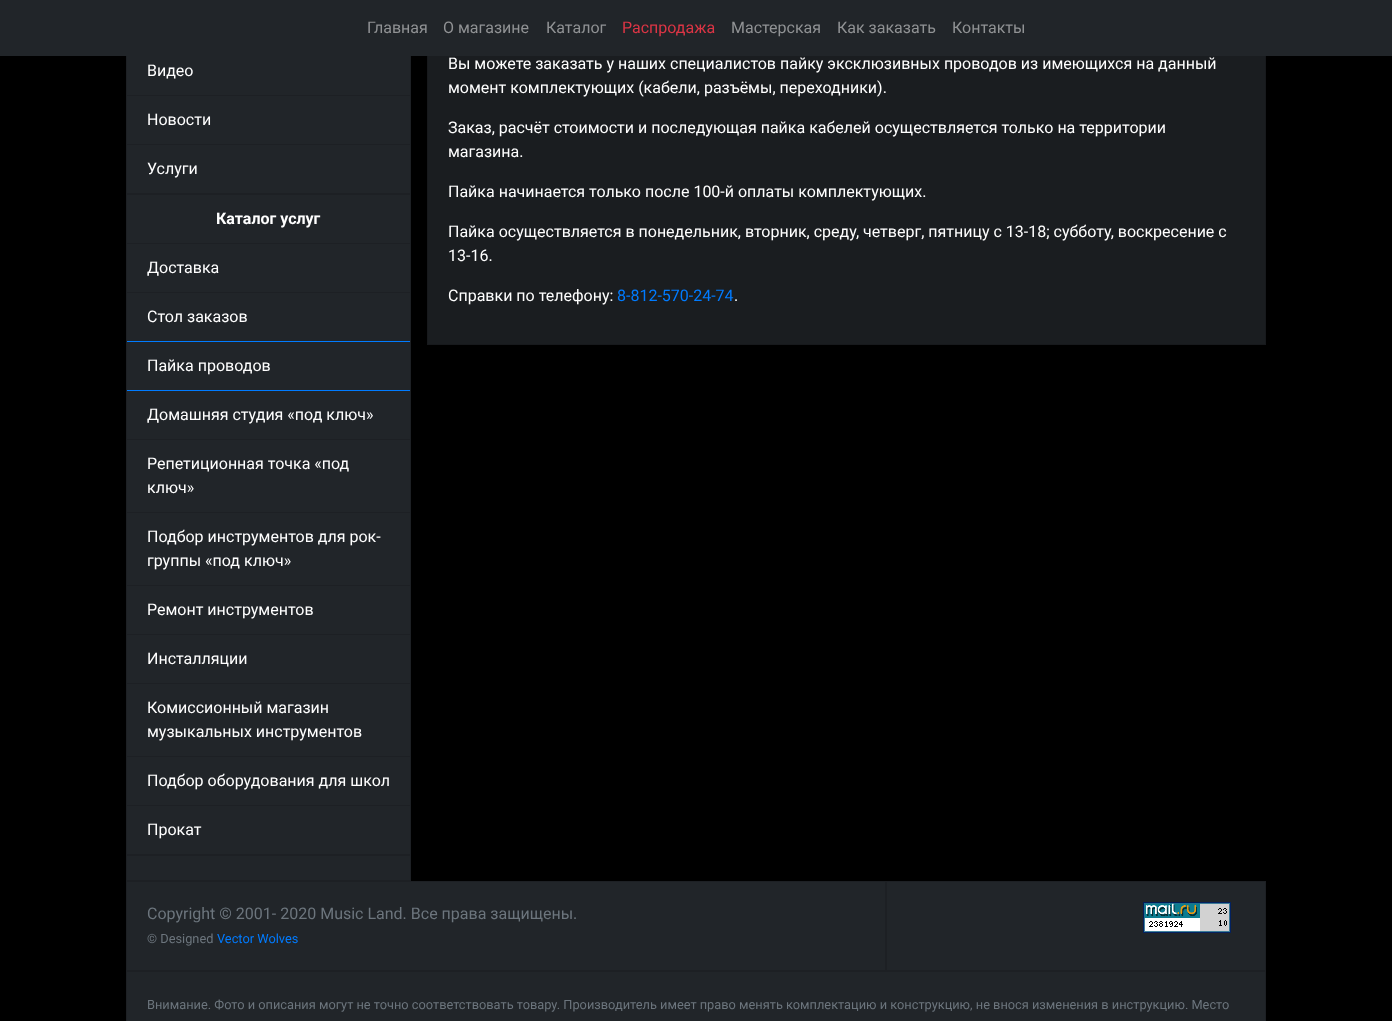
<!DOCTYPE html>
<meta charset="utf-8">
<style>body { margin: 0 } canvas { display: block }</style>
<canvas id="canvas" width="1392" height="1021"></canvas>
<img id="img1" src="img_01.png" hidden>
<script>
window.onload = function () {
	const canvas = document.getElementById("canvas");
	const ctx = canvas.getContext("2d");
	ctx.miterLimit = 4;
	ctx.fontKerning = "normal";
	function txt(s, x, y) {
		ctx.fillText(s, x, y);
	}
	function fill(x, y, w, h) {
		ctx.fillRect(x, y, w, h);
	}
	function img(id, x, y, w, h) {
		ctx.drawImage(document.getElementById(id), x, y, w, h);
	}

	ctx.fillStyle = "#000000";
	fill(0, 0, 1392, 1021);
	ctx.strokeStyle = "#1D2024";
	ctx.strokeRect(126.5, -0.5, 284, 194);
	ctx.fillStyle = "#1A1D20";
	fill(428, 56, 837, 288);
	ctx.strokeStyle = "#17191C";
	ctx.strokeRect(427.5, -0.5, 838, 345);
	ctx.fillStyle = "#212529";
	fill(0, 0, 1392, 56);
	fill(127, 195, 283, 685);
	fill(127, 56, 283, 39);
	fill(127, 96, 283, 48);
	ctx.fillStyle = "#1D2024";
	fill(127, 95, 283, 1);
	ctx.fillStyle = "#212529";
	fill(127, 145, 283, 48);
	ctx.fillStyle = "#1D2024";
	fill(127, 144, 283, 1);
	ctx.strokeStyle = "#1D2024";
	ctx.strokeRect(126.5, 194.5, 284, 660);
	fill(127, 243, 283, 1);
	fill(127, 292, 283, 1);
	ctx.fillStyle = "#007BFF";
	fill(127, 341, 283, 1);
	fill(127, 390, 283, 1);
	ctx.fillStyle = "#1D2024";
	fill(127, 439, 283, 1);
	fill(127, 512, 283, 1);
	fill(127, 585, 283, 1);
	fill(127, 634, 283, 1);
	fill(127, 683, 283, 1);
	fill(127, 756, 283, 1);
	fill(127, 805, 283, 1);
	ctx.strokeRect(126.5, 855.5, 284, 25);
	ctx.fillStyle = "#212529";
	fill(127, 882, 1138, 139);
	ctx.strokeRect(126.5, 881.5, 759, 89);
	ctx.strokeRect(886.5, 881.5, 379, 89);
	img("img1", 1143, 902, 88, 31);
	ctx.strokeRect(126.5, 971.5, 1139, 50);
	ctx.font = "16px Roboto";
	ctx.fillStyle = "#909294";
	txt("Главная", 367, 33);
	txt("О магазине", 443, 33);
	txt("Каталог", 546, 33);
	ctx.fillStyle = "#DC3545";
	txt("Распродажа", 622, 33);
	ctx.fillStyle = "#909294";
	txt("Мастерская", 731, 33);
	txt("Как заказать", 837, 33);
	txt("Контакты", 952, 33);
	ctx.fillStyle = "#FFFFFF";
	txt("Видео", 147, 76);
	txt("Новости", 147, 125);
	txt("Услуги", 147, 174);
	ctx.font = "bold 16px Roboto";
	txt("Каталог услуг", 216, 224);
	ctx.font = "16px Roboto";
	txt("Доставка", 147, 273);
	txt("Стол заказов", 147, 322);
	txt("Пайка проводов", 147, 371);
	txt("Домашняя студия «под ключ»", 147, 420);
	txt("Репетиционная точка «под", 147, 469);
	txt("ключ»", 147, 493);
	txt("Подбор инструментов для рок-", 147, 542);
	txt("группы «под ключ»", 147, 566);
	txt("Ремонт инструментов", 147, 615);
	txt("Инсталляции", 147, 664);
	txt("Комиссионный магазин", 147, 713);
	txt("музыкальных инструментов", 147, 737);
	txt("Подбор оборудования для школ", 147, 786);
	txt("Прокат", 147, 835);
	txt("Вы можете заказать у наших специалистов пайку эксклюзивных проводов из имеющихся на данный", 448, 69);
	txt("момент комплектующих (кабели, разъёмы, переходники).", 448, 93);
	txt("Заказ, расчёт стоимости и последующая пайка кабелей осуществляется только на территории", 448, 133);
	txt("магазина.", 448, 157);
	txt("Пайка начинается только после 100-й оплаты комплектующих.", 448, 197);
	txt("Пайка осуществляется в понедельник, вторник, среду, четверг, пятницу с 13-18; субботу, воскресение с", 448, 237);
	txt("13-16.", 448, 261);
	txt("Справки по телефону:", 448, 301);
	ctx.fillStyle = "#007BFF";
	txt("8-812-570-24-74", 617, 301);
	ctx.fillStyle = "#FFFFFF";
	txt(".", 734, 301);
	ctx.fillStyle = "#6C757D";
	txt("Copyright © 2001- 2020 Music Land. Все права защищены.", 147, 919);
	ctx.font = "12.8px Roboto";
	txt("© Designed", 147, 943);
	ctx.fillStyle = "#007BFF";
	txt("Vector Wolves", 217, 943);
	ctx.fillStyle = "#6C757D";
	txt("Внимание. Фото и описания могут не точно соответствовать товару. Производитель имеет право менять комплектацию и конструкцию, не внося изменения в инструкцию. Место", 147, 1009);
};
</script>
